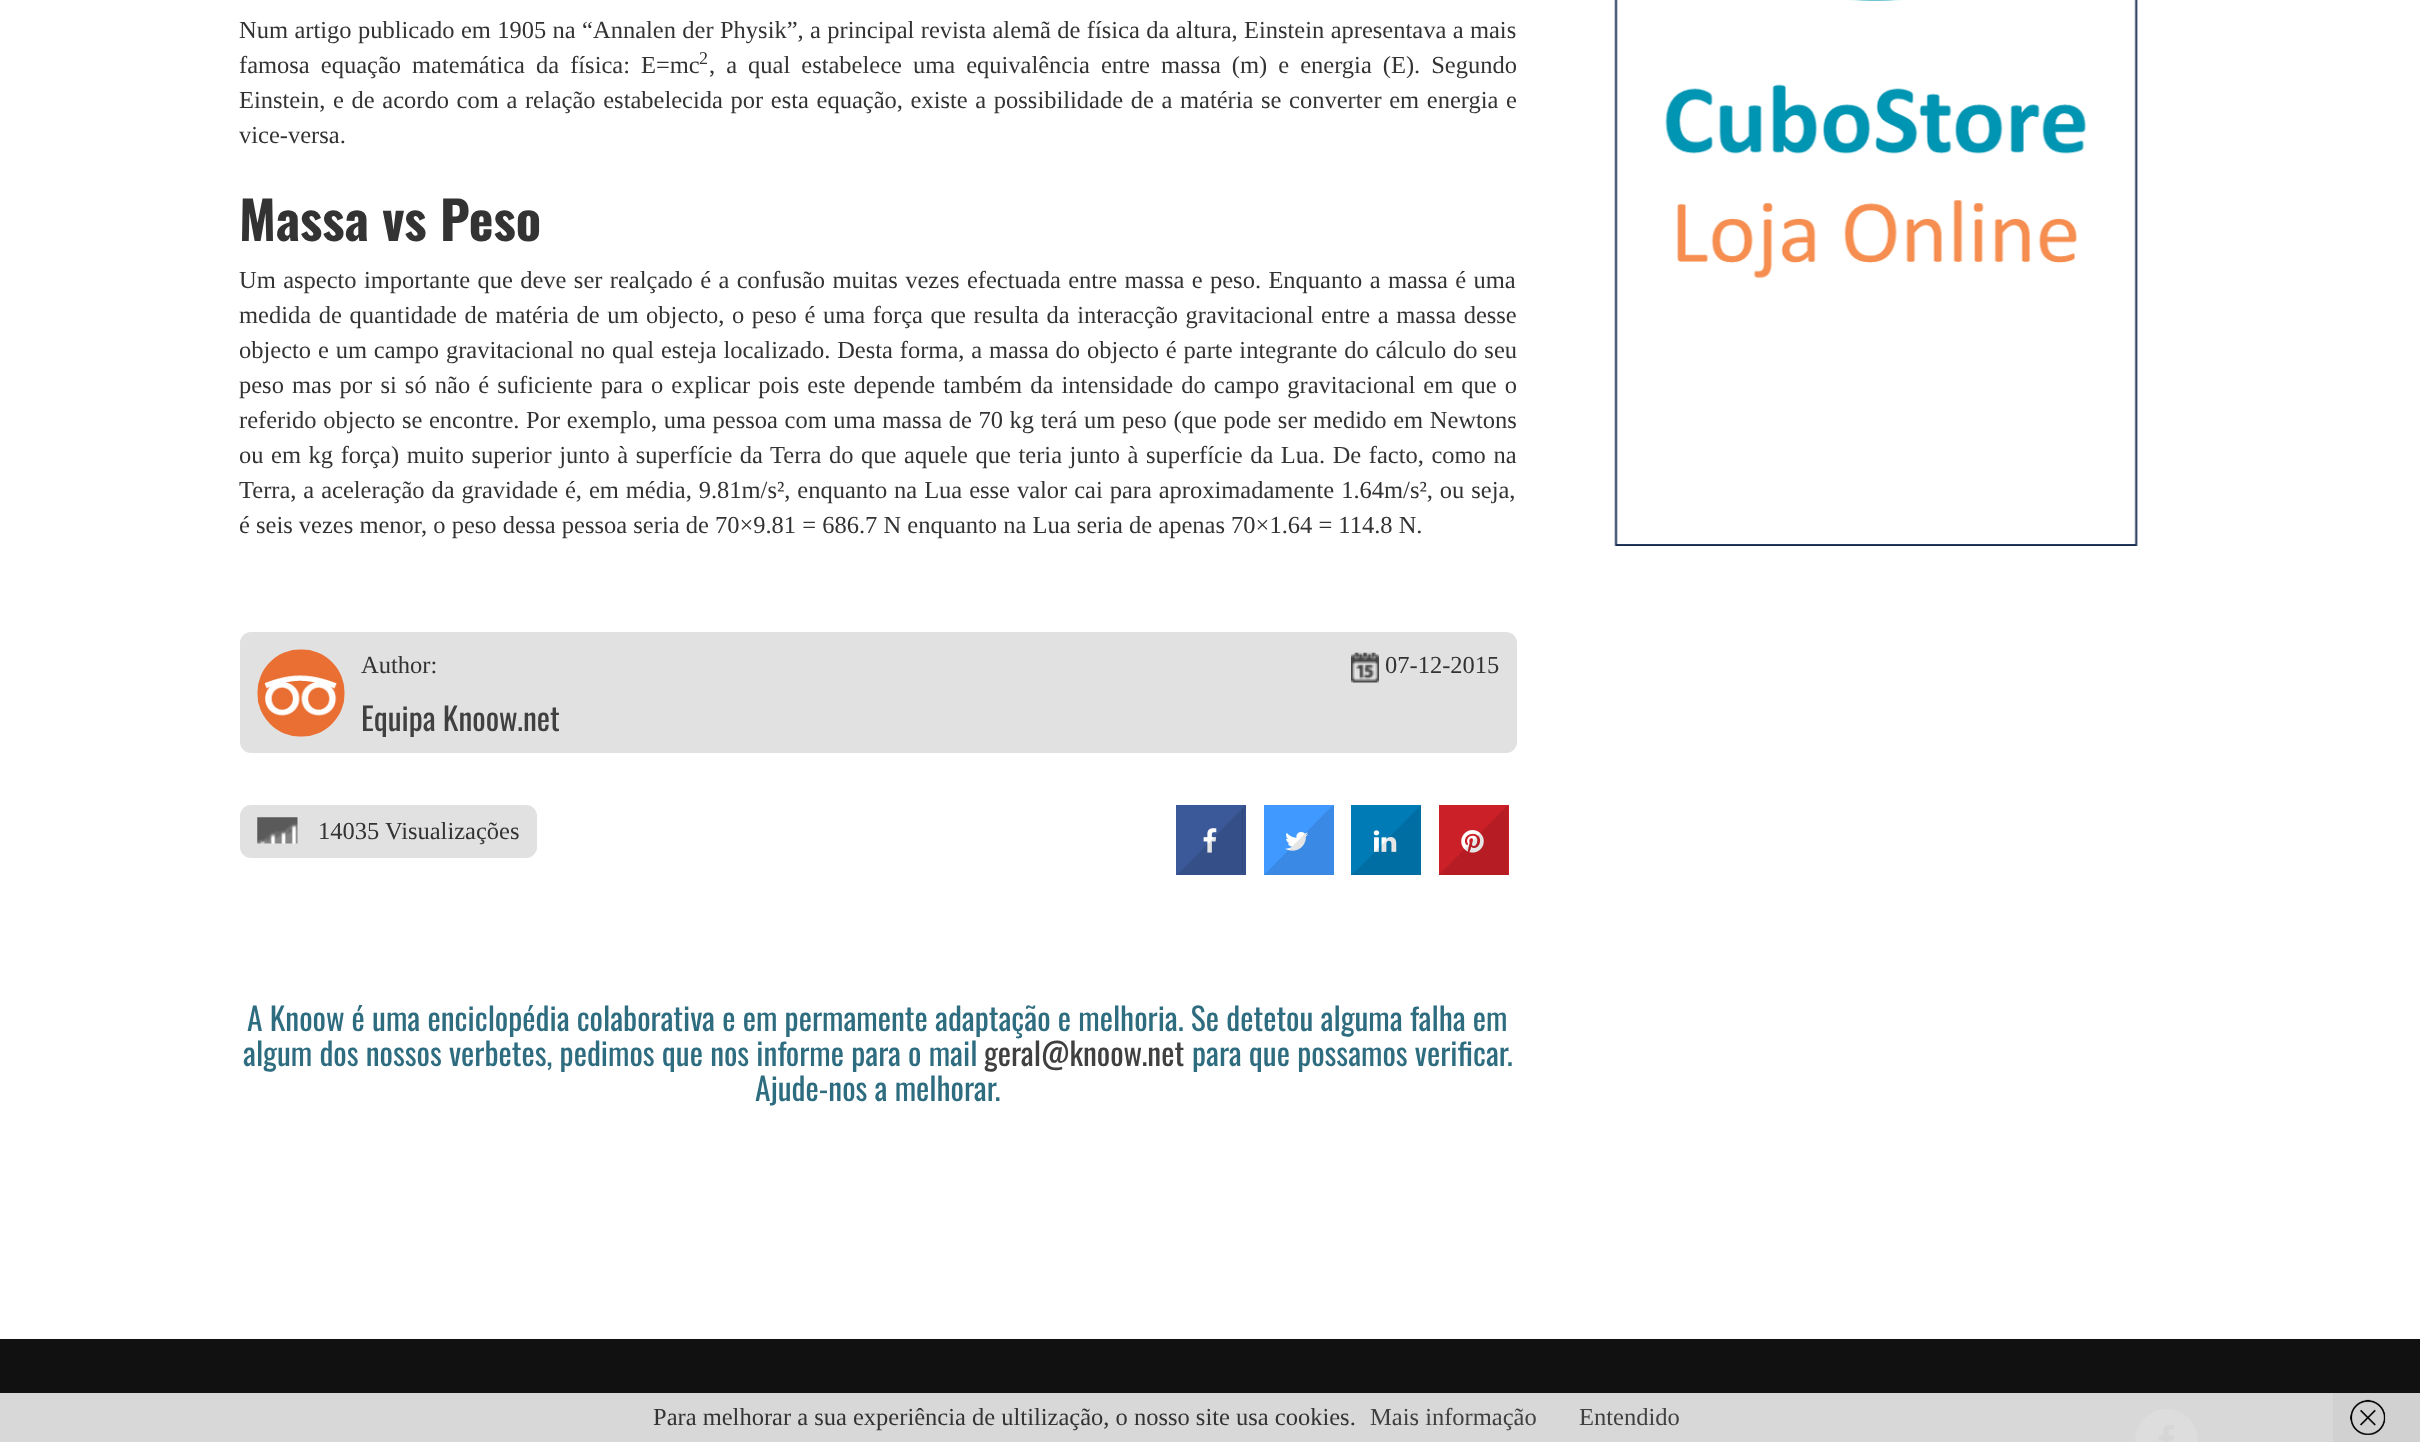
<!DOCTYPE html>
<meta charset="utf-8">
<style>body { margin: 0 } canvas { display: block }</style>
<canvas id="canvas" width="2420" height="1442"></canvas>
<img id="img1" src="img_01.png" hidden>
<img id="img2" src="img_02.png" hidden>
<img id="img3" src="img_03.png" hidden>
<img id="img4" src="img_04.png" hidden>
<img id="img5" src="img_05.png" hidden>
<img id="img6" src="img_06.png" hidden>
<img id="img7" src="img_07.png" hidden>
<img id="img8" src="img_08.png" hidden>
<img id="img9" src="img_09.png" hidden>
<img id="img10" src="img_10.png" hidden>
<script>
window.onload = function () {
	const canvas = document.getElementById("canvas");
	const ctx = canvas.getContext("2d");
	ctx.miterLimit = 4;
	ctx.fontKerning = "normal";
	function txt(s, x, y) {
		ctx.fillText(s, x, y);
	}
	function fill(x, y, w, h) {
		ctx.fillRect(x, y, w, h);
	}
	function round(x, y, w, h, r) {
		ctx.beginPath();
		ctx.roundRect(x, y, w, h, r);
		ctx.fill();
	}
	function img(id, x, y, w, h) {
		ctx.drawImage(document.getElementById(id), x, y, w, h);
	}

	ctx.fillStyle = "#FFFFFF";
	fill(0, 0, 2420, 1442);
	ctx.fillStyle = "#E1E1E1";
	round(240, 632, 1277, 121, 11);
	img("img1", 257, 649, 88, 88);
	img("img2", 1351, 652, 28, 31);
	round(240, 805, 297, 53, 11);
	img("img3", 257, 817, 41, 27);
	ctx.fillStyle = "#3B5998";
	fill(1176, 805, 70, 70);
	ctx.fillStyle = "#355089";
	ctx.beginPath();
	ctx.moveTo(1246, 805);
	ctx.lineTo(1246, 875);
	ctx.lineTo(1242, 872);
	ctx.lineTo(1242, 808);
	ctx.closePath();
	ctx.fill();
	ctx.fillStyle = "rgba(0, 0, 0, 0.1)";
	ctx.beginPath();
	ctx.moveTo(1246, 875);
	ctx.lineTo(1176, 875);
	ctx.lineTo(1180, 872);
	ctx.lineTo(1242, 872);
	ctx.closePath();
	ctx.fill();
	img("img4", 1203, 828, 14, 25);
	ctx.save();
	ctx.beginPath();
	ctx.rect(1180, 809, 63, 63);
	ctx.clip();
	ctx.beginPath();
	ctx.moveTo(1245, 806);
	ctx.lineTo(1280, 841);
	ctx.lineTo(1210, 910);
	ctx.lineTo(1176, 876);
	ctx.closePath();
	ctx.fill();
	ctx.restore();
	ctx.fillStyle = "#4099FF";
	fill(1264, 805, 70, 70);
	ctx.fillStyle = "#3A8AE6";
	ctx.beginPath();
	ctx.moveTo(1334, 805);
	ctx.lineTo(1334, 875);
	ctx.lineTo(1330, 872);
	ctx.lineTo(1330, 808);
	ctx.closePath();
	ctx.fill();
	ctx.fillStyle = "rgba(0, 0, 0, 0.1)";
	ctx.beginPath();
	ctx.moveTo(1334, 875);
	ctx.lineTo(1264, 875);
	ctx.lineTo(1267, 872);
	ctx.lineTo(1330, 872);
	ctx.closePath();
	ctx.fill();
	img("img5", 1285, 831, 24, 20);
	ctx.save();
	ctx.beginPath();
	ctx.rect(1267, 809, 63, 63);
	ctx.clip();
	ctx.beginPath();
	ctx.moveTo(1332, 806);
	ctx.lineTo(1367, 841);
	ctx.lineTo(1298, 910);
	ctx.lineTo(1263, 876);
	ctx.closePath();
	ctx.fill();
	ctx.restore();
	ctx.fillStyle = "#007BB6";
	fill(1351, 805, 70, 70);
	ctx.fillStyle = "#006FA4";
	ctx.beginPath();
	ctx.moveTo(1421, 805);
	ctx.lineTo(1421, 875);
	ctx.lineTo(1418, 872);
	ctx.lineTo(1418, 808);
	ctx.closePath();
	ctx.fill();
	ctx.fillStyle = "rgba(0, 0, 0, 0.1)";
	ctx.beginPath();
	ctx.moveTo(1421, 875);
	ctx.lineTo(1351, 875);
	ctx.lineTo(1354, 872);
	ctx.lineTo(1418, 872);
	ctx.closePath();
	ctx.fill();
	img("img6", 1373, 830, 24, 22);
	ctx.save();
	ctx.beginPath();
	ctx.rect(1355, 809, 63, 63);
	ctx.clip();
	ctx.beginPath();
	ctx.moveTo(1420, 806);
	ctx.lineTo(1455, 841);
	ctx.lineTo(1385, 910);
	ctx.lineTo(1351, 876);
	ctx.closePath();
	ctx.fill();
	ctx.restore();
	ctx.fillStyle = "#CB2027";
	fill(1439, 805, 70, 70);
	ctx.fillStyle = "#B71D23";
	ctx.beginPath();
	ctx.moveTo(1508, 805);
	ctx.lineTo(1508, 875);
	ctx.lineTo(1505, 872);
	ctx.lineTo(1505, 808);
	ctx.closePath();
	ctx.fill();
	ctx.fillStyle = "rgba(0, 0, 0, 0.1)";
	ctx.beginPath();
	ctx.moveTo(1508, 875);
	ctx.lineTo(1438, 875);
	ctx.lineTo(1442, 872);
	ctx.lineTo(1505, 872);
	ctx.closePath();
	ctx.fill();
	img("img7", 1461, 830, 23, 23);
	ctx.save();
	ctx.beginPath();
	ctx.rect(1442, 809, 63, 63);
	ctx.clip();
	ctx.beginPath();
	ctx.moveTo(1507, 806);
	ctx.lineTo(1542, 841);
	ctx.lineTo(1473, 910);
	ctx.lineTo(1438, 876);
	ctx.closePath();
	ctx.fill();
	ctx.restore();
	img("img8", 1614, 0, 524, 546);
	ctx.fillStyle = "#111111";
	fill(0, 1339, 2420, 54);
	ctx.fillStyle = "#D8D8D8";
	fill(0, 1393, 2333, 49);
	ctx.fillStyle = "#DDDDDD";
	ctx.beginPath();
	ctx.arc(2166.5, 1440.5, 31.5, 0, Math.PI * 2);
	ctx.fill();
	img("img9", 2158, 1424, 17, 18);
	ctx.fillStyle = "#D1D1D1";
	fill(2333, 1393, 87, 49);
	img("img10", 2350, 1399, 36, 36);
	ctx.wordSpacing = "0.25px";
	ctx.font = "24.5px Liberation Serif";
	ctx.fillStyle = "#333333";
	txt("Num artigo publicado em 1905 na “Annalen der Physik”, a principal revista alemã de física da altura, Einstein apresentava a mais", 239, 38);
	ctx.wordSpacing = "4.9px";
	txt("famosa equação matemática da física: E=mc", 239, 73);
	ctx.wordSpacing = "0px";
	ctx.font = "18px Liberation Serif";
	txt("2", 699, 64);
	ctx.wordSpacing = "4.9px";
	ctx.font = "24.5px Liberation Serif";
	txt(", a qual estabelece uma equivalência entre massa (m) e energia (E). Segundo", 709, 73);
	ctx.wordSpacing = "1.5px";
	txt("Einstein, e de acordo com a relação estabelecida por esta equação, existe a possibilidade de a matéria se converter em energia e", 239, 108);
	ctx.wordSpacing = "0px";
	txt("vice-versa.", 239, 143);
	ctx.font = "bold 52.5px Oswald";
	txt("Massa vs Peso", 239, 241);
	ctx.wordSpacing = "1.25px";
	ctx.font = "24.5px Liberation Serif";
	txt("Um aspecto importante que deve ser realçado é a confusão muitas vezes efectuada entre massa e peso. Enquanto a massa é uma", 239, 288);
	ctx.wordSpacing = "1.5px";
	txt("medida de quantidade de matéria de um objecto, o peso é uma força que resulta da interacção gravitacional entre a massa desse", 239, 323);
	ctx.wordSpacing = "0.7px";
	txt("objecto e um campo gravitacional no qual esteja localizado. Desta forma, a massa do objecto é parte integrante do cálculo do seu", 239, 358);
	ctx.wordSpacing = "2px";
	txt("peso mas por si só não é suficiente para o explicar pois este depende também da intensidade do campo gravitacional em que o", 239, 393);
	ctx.wordSpacing = "0.5px";
	txt("referido objecto se encontre. Por exemplo, uma pessoa com uma massa de 70 kg terá um peso (que pode ser medido em Newtons", 239, 428);
	ctx.wordSpacing = "1.45px";
	txt("ou em kg força) muito superior junto à superfície da Terra do que aquele que teria junto à superfície da Lua. De facto, como na", 239, 463);
	ctx.wordSpacing = "0.8px";
	txt("Terra, a aceleração da gravidade é, em média, 9.81m/s², enquanto na Lua esse valor cai para aproximadamente 1.64m/s², ou seja,", 239, 498);
	ctx.wordSpacing = "0px";
	txt("é seis vezes menor, o peso dessa pessoa seria de 70×9.81 = 686.7 N enquanto na Lua seria de apenas 70×1.64 = 114.8 N.", 239, 533);
	txt("Author:", 361, 673);
	ctx.font = "31.5px Oswald";
	ctx.fillStyle = "#404040";
	txt("Equipa Knoow.net", 361, 731);
	ctx.font = "24.5px Liberation Serif";
	ctx.fillStyle = "#333333";
	txt("07-12-2015", 1385, 673);
	txt("14035 Visualizações", 318, 839);
	ctx.font = "31.5px Oswald";
	ctx.fillStyle = "#2E6C80";
	txt("A Knoow é uma enciclopédia colaborativa e em permamente adaptação e melhoria. Se detetou alguma falha em", 247, 1031);
	txt("algum dos nossos verbetes, pedimos que nos informe para o mail", 243, 1066);
	ctx.fillStyle = "#404040";
	txt("geral@knoow.net", 984, 1066);
	ctx.fillStyle = "#2E6C80";
	txt("para que possamos verificar.", 1192, 1066);
	txt("Ajude-nos a melhorar.", 755, 1101);
	ctx.font = "24.5px Liberation Serif";
	ctx.fillStyle = "#333333";
	txt("Para melhorar a sua experiência de ultilização, o nosso site usa cookies.", 653, 1425);
	ctx.fillStyle = "#404040";
	txt("Mais informação", 1370, 1425);
	txt("Entendido", 1579, 1425);
};
</script>
